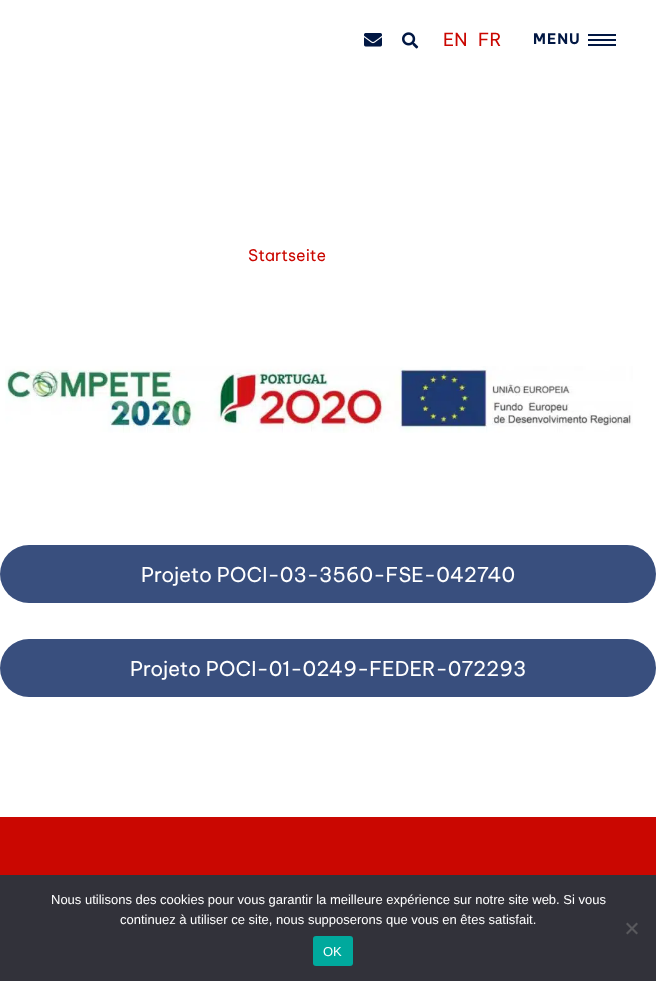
<!DOCTYPE html>
<meta charset="utf-8">
<style>body { margin: 0 } canvas { display: block }</style>
<canvas id="canvas" width="656" height="981"></canvas>
<img id="img1" src="img_01.png" hidden>
<img id="img2" src="img_02.png" hidden>
<img id="img3" src="img_03.png" hidden>
<script>
window.onload = function () {
	const canvas = document.getElementById("canvas");
	const ctx = canvas.getContext("2d");
	ctx.miterLimit = 4;
	ctx.fontKerning = "normal";
	function txt(s, x, y) {
		ctx.fillText(s, x, y);
	}
	function fill(x, y, w, h) {
		ctx.fillRect(x, y, w, h);
	}
	function round(x, y, w, h, r) {
		ctx.beginPath();
		ctx.roundRect(x, y, w, h, r);
		ctx.fill();
	}
	function img(id, x, y, w, h) {
		ctx.drawImage(document.getElementById(id), x, y, w, h);
	}

	ctx.fillStyle = "#FFFFFF";
	fill(0, 0, 656, 981);
	img("img1", 364, 33, 18, 14);
	img("img2", 402, 32, 17, 17);
	ctx.fillStyle = "#011743";
	fill(588, 34, 28, 2);
	fill(588, 39, 28, 2);
	fill(588, 44, 28, 2);
	img("img3", 5, 366, 628, 67);
	ctx.fillStyle = "#394F7E";
	round(0, 545, 656, 58, 29);
	round(0, 639, 656, 58, 29);
	ctx.fillStyle = "#CA0701";
	fill(0, 817, 656, 58);
	ctx.fillStyle = "#32323A";
	fill(0, 875, 656, 106);
	ctx.fillStyle = "#59595D";
	ctx.beginPath();
	ctx.moveTo(636.5, 922.5);
	ctx.lineTo(638, 924);
	ctx.lineTo(627.5, 934.5);
	ctx.lineTo(626, 933);
	ctx.closePath();
	ctx.fill();
	ctx.beginPath();
	ctx.moveTo(626, 924);
	ctx.lineTo(627.5, 922.5);
	ctx.lineTo(638, 933);
	ctx.lineTo(636.5, 934.5);
	ctx.closePath();
	ctx.fill();
	ctx.fillStyle = "#00A99D";
	round(313, 936, 40, 30, 3);
	ctx.font = "18px Be Vietnam Pro";
	ctx.fillStyle = "#CA0701";
	txt("EN", 443, 46);
	txt("FR", 478, 46);
	ctx.letterSpacing = "1px";
	ctx.font = "bold 14.5px Be Vietnam Pro";
	ctx.fillStyle = "#011743";
	txt("MENU", 533, 44);
	ctx.letterSpacing = "0px";
	ctx.font = "16px Be Vietnam Pro";
	ctx.fillStyle = "#CA0701";
	txt("Startseite", 248, 261);
	ctx.font = "20.25px Be Vietnam Pro";
	ctx.fillStyle = "#FFFFFF";
	txt("Projeto POCI-03-3560-FSE-042740", 141, 582);
	txt("Projeto POCI-01-0249-FEDER-072293", 130, 676);
	ctx.font = "13px Liberation Sans";
	txt("Nous utilisons des cookies pour vous garantir la meilleure expérience sur notre site web. Si vous", 51, 904);
	txt("continuez à utiliser ce site, nous supposerons que vous en êtes satisfait.", 120, 924);
	txt("OK", 323, 956);
};
</script>
